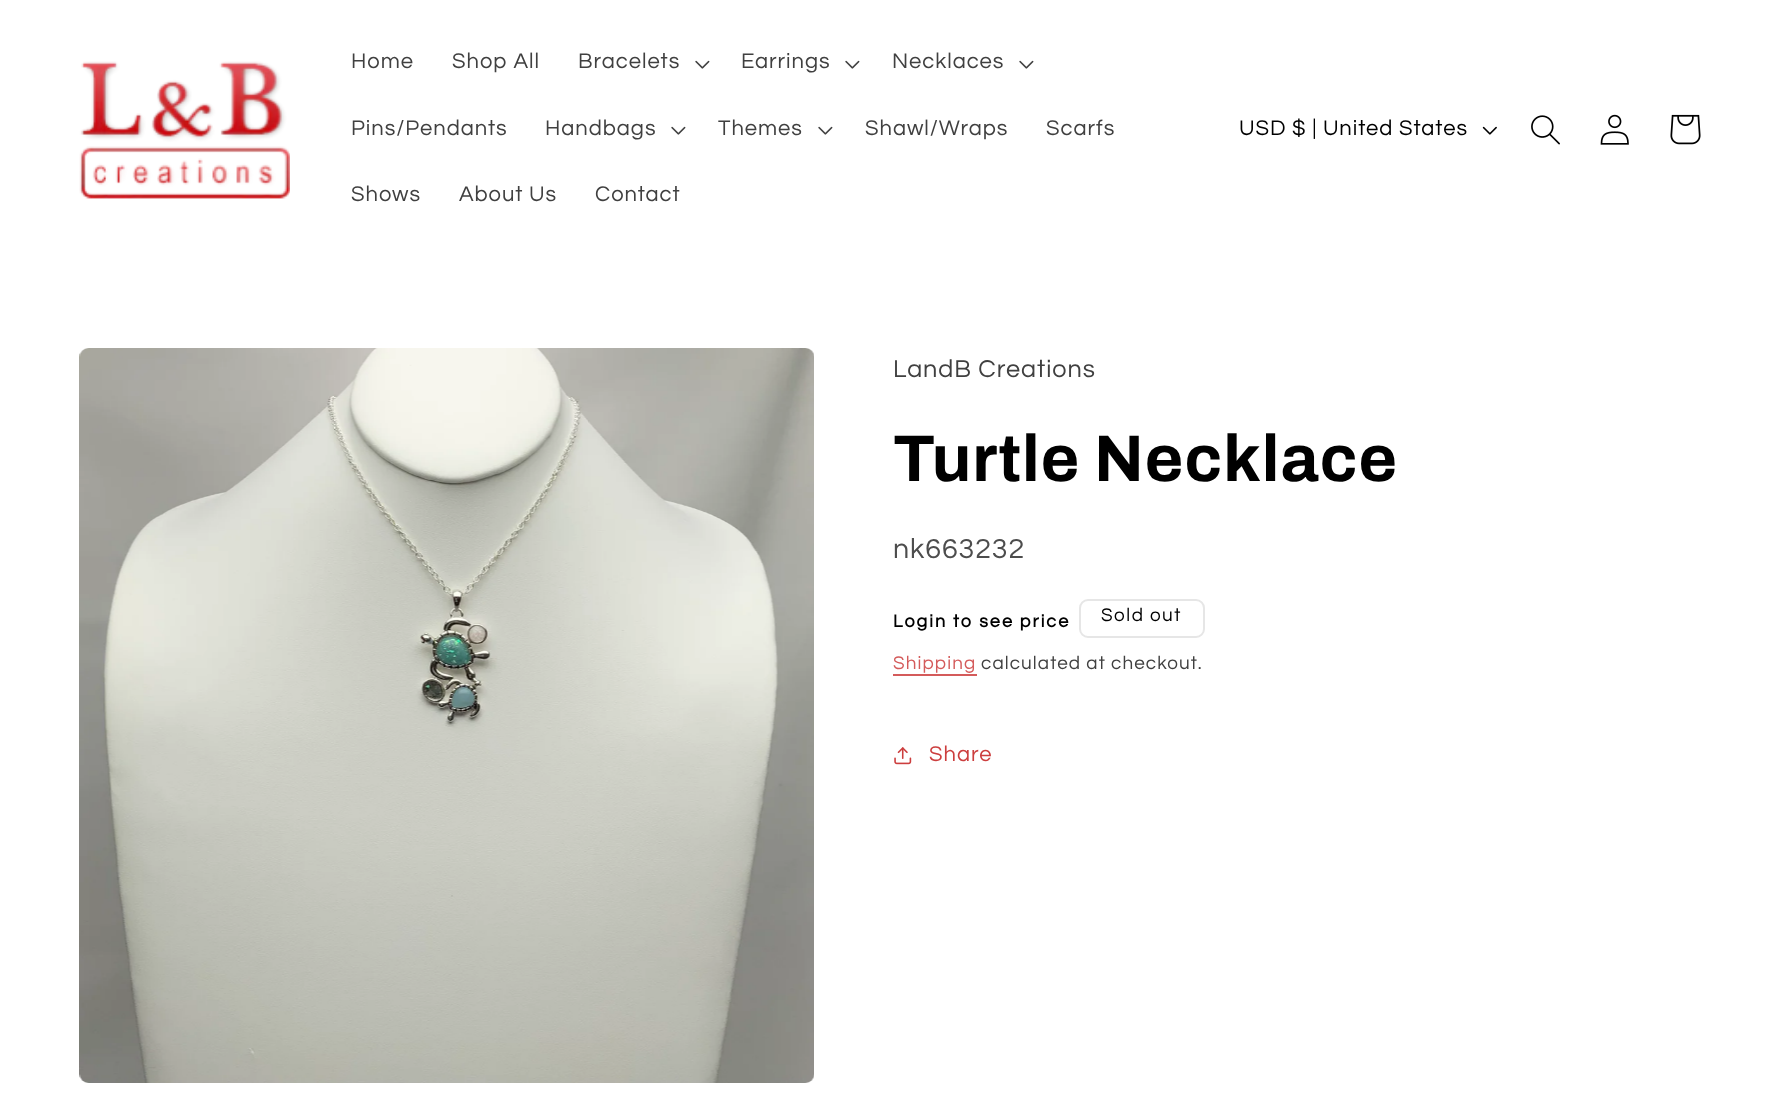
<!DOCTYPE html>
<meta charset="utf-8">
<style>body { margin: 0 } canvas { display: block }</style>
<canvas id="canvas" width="1791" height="1112"></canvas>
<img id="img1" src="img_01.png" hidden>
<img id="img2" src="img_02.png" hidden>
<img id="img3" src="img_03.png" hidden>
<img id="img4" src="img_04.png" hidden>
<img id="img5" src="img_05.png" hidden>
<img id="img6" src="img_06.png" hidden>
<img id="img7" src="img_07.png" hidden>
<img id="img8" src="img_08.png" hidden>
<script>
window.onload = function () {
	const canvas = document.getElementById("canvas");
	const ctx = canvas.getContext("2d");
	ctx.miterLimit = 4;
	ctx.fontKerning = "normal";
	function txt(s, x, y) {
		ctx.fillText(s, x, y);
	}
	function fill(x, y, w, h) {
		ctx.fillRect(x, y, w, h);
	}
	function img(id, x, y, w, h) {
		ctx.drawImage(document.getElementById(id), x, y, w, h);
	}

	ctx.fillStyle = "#FFFFFF";
	fill(0, 0, 1791, 1112);
	img("img1", 79, 61, 211, 138);
	img("img2", 695, 60, 15, 9);
	img("img2", 845, 60, 15, 9);
	img("img2", 1019, 60, 15, 9);
	img("img2", 671, 126, 15, 9);
	img("img2", 818, 126, 15, 9);
	img("img3", 1482, 126, 15, 9);
	img("img4", 1531, 115, 29, 30);
	img("img5", 1600, 114, 29, 31);
	img("img6", 1670, 114, 31, 31);
	img("img7", 79, 348, 735, 735);
	ctx.beginPath();
	ctx.roundRect(1080, 600, 124, 37, 8);
	ctx.strokeStyle = "#E6E6E6";
	ctx.lineWidth = 2;
	ctx.stroke();
	ctx.fillStyle = "#D45B5B";
	fill(893, 674, 84, 2);
	img("img8", 894, 747, 18, 18);
	ctx.letterSpacing = "0.95px";
	ctx.font = "22px Questrial";
	ctx.fillStyle = "#404040";
	txt("Home", 351, 68);
	txt("Shop All", 452, 68);
	txt("Bracelets", 578, 68);
	txt("Earrings", 741, 68);
	txt("Necklaces", 892, 68);
	txt("Pins/Pendants", 351, 135);
	txt("Handbags", 545, 135);
	txt("Themes", 718, 135);
	txt("Shawl/Wraps", 865, 135);
	txt("Scarfs", 1046, 135);
	txt("Shows", 351, 201);
	txt("About Us", 459, 201);
	txt("Contact", 595, 201);
	ctx.fillStyle = "#000000";
	txt("USD $ | United States", 1239, 135);
	ctx.font = "25.25px Questrial";
	ctx.fillStyle = "#404040";
	txt("LandB Creations", 893, 377);
	ctx.letterSpacing = "1px";
	ctx.font = "bold 66px Archivo";
	ctx.fillStyle = "#000000";
	txt("Turtle Necklace", 893, 481);
	ctx.letterSpacing = "0.95px";
	ctx.font = "28.5px Questrial";
	ctx.fillStyle = "#4D4D4D";
	txt("nk663232", 893, 558);
	ctx.letterSpacing = "2px";
	ctx.font = "bold 18px Questrial";
	ctx.fillStyle = "#000000";
	txt("Login to see price", 893, 627);
	ctx.letterSpacing = "1.5px";
	ctx.font = "18.9px Questrial";
	txt("Sold out", 1101, 621);
	ctx.letterSpacing = "1.1px";
	ctx.fillStyle = "#D45B5B";
	txt("Shipping", 893, 669);
	ctx.fillStyle = "#404040";
	txt("calculated at checkout.", 981, 669);
	ctx.letterSpacing = "0.95px";
	ctx.font = "22px Questrial";
	ctx.fillStyle = "#CC3E3E";
	txt("Share", 929, 761);
};
</script>
